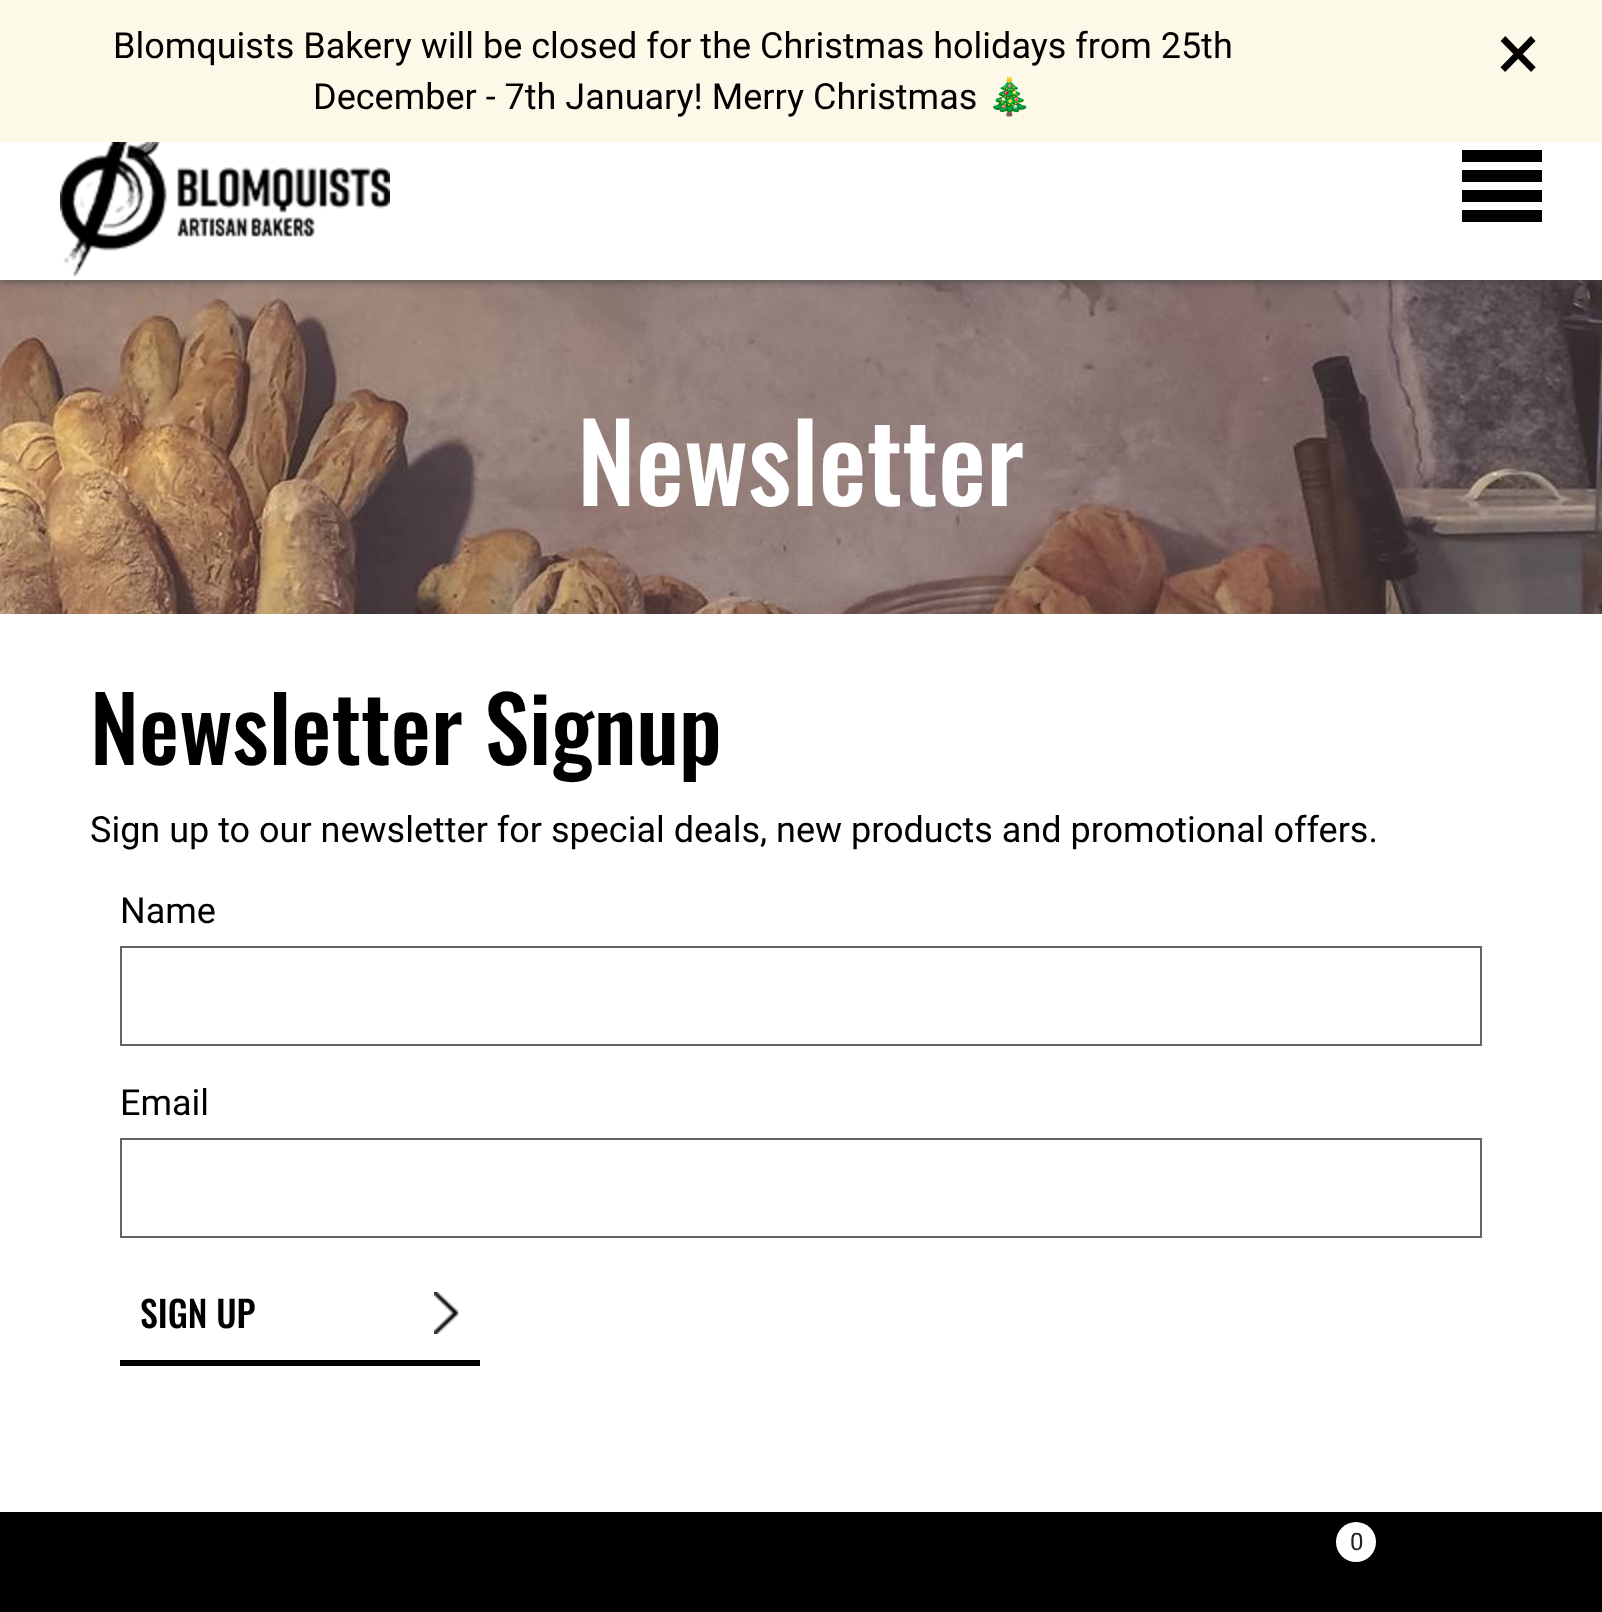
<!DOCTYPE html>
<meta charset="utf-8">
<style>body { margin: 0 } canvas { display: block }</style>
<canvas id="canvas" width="1602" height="1612"></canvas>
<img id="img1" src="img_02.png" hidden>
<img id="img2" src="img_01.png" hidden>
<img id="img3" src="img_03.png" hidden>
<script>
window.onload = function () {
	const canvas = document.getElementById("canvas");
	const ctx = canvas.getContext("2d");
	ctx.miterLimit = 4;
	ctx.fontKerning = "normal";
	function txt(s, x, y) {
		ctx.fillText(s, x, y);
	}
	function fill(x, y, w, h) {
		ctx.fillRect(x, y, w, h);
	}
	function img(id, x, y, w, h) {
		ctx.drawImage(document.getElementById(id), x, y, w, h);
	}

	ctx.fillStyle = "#FFFFFF";
	fill(0, 0, 1602, 1612);
	img("img1", 0, 280, 1602, 334);
	ctx.fillStyle = "#444444";
	ctx.filter = "blur(5px)";
	ctx.beginPath();
	ctx.rect(0, 80, 1602, 200);
	ctx.fill();
	ctx.filter = "none";
	ctx.fillStyle = "#FCF9E8";
	fill(0, 0, 1602, 142);
	ctx.fillStyle = "#FFFFFF";
	fill(0, 142, 1602, 138);
	img("img2", 60, 142, 330, 148);
	ctx.fillStyle = "#000000";
	fill(1462, 150, 80, 12);
	fill(1462, 170, 80, 12);
	fill(1462, 190, 80, 12);
	fill(1462, 210, 80, 12);
	ctx.strokeStyle = "#666666";
	ctx.lineWidth = 2;
	ctx.strokeRect(121, 947, 1360, 98);
	ctx.strokeRect(121, 1139, 1360, 98);
	img("img3", 434, 1292, 25, 42);
	fill(120, 1360, 360, 6);
	fill(0, 1512, 1602, 100);
	ctx.fillStyle = "#FFFFFF";
	ctx.beginPath();
	ctx.arc(1356, 1542, 20, 0, Math.PI * 2);
	ctx.fill();
	ctx.font = "36px Roboto";
	ctx.fillStyle = "#000000";
	txt("Blomquists Bakery will be closed for the Christmas holidays from 25th", 113, 58);
	txt("December - 7th January! Merry Christmas", 313, 109);
	ctx.font = "36px Noto Color Emoji";
	txt("🎄", 987, 109);
	ctx.font = "80px Roboto";
	txt("×", 1497, 80);
	ctx.font = "500 108px Oswald";
	ctx.fillStyle = "#FFFFFF";
	txt("Newsletter", 577, 506);
	ctx.font = "500 90px Oswald";
	ctx.fillStyle = "#000000";
	txt("Newsletter Signup", 90, 765);
	ctx.font = "36px Roboto";
	txt("Sign up to our newsletter for special deals, new products and promotional offers.", 90, 842);
	txt("Name", 120, 923);
	txt("Email", 120, 1115);
	ctx.font = "500 36px Oswald";
	txt("SIGN UP", 140, 1328);
	ctx.font = "24px Roboto";
	ctx.fillStyle = "#222222";
	txt("0", 1350, 1550);
};
</script>
